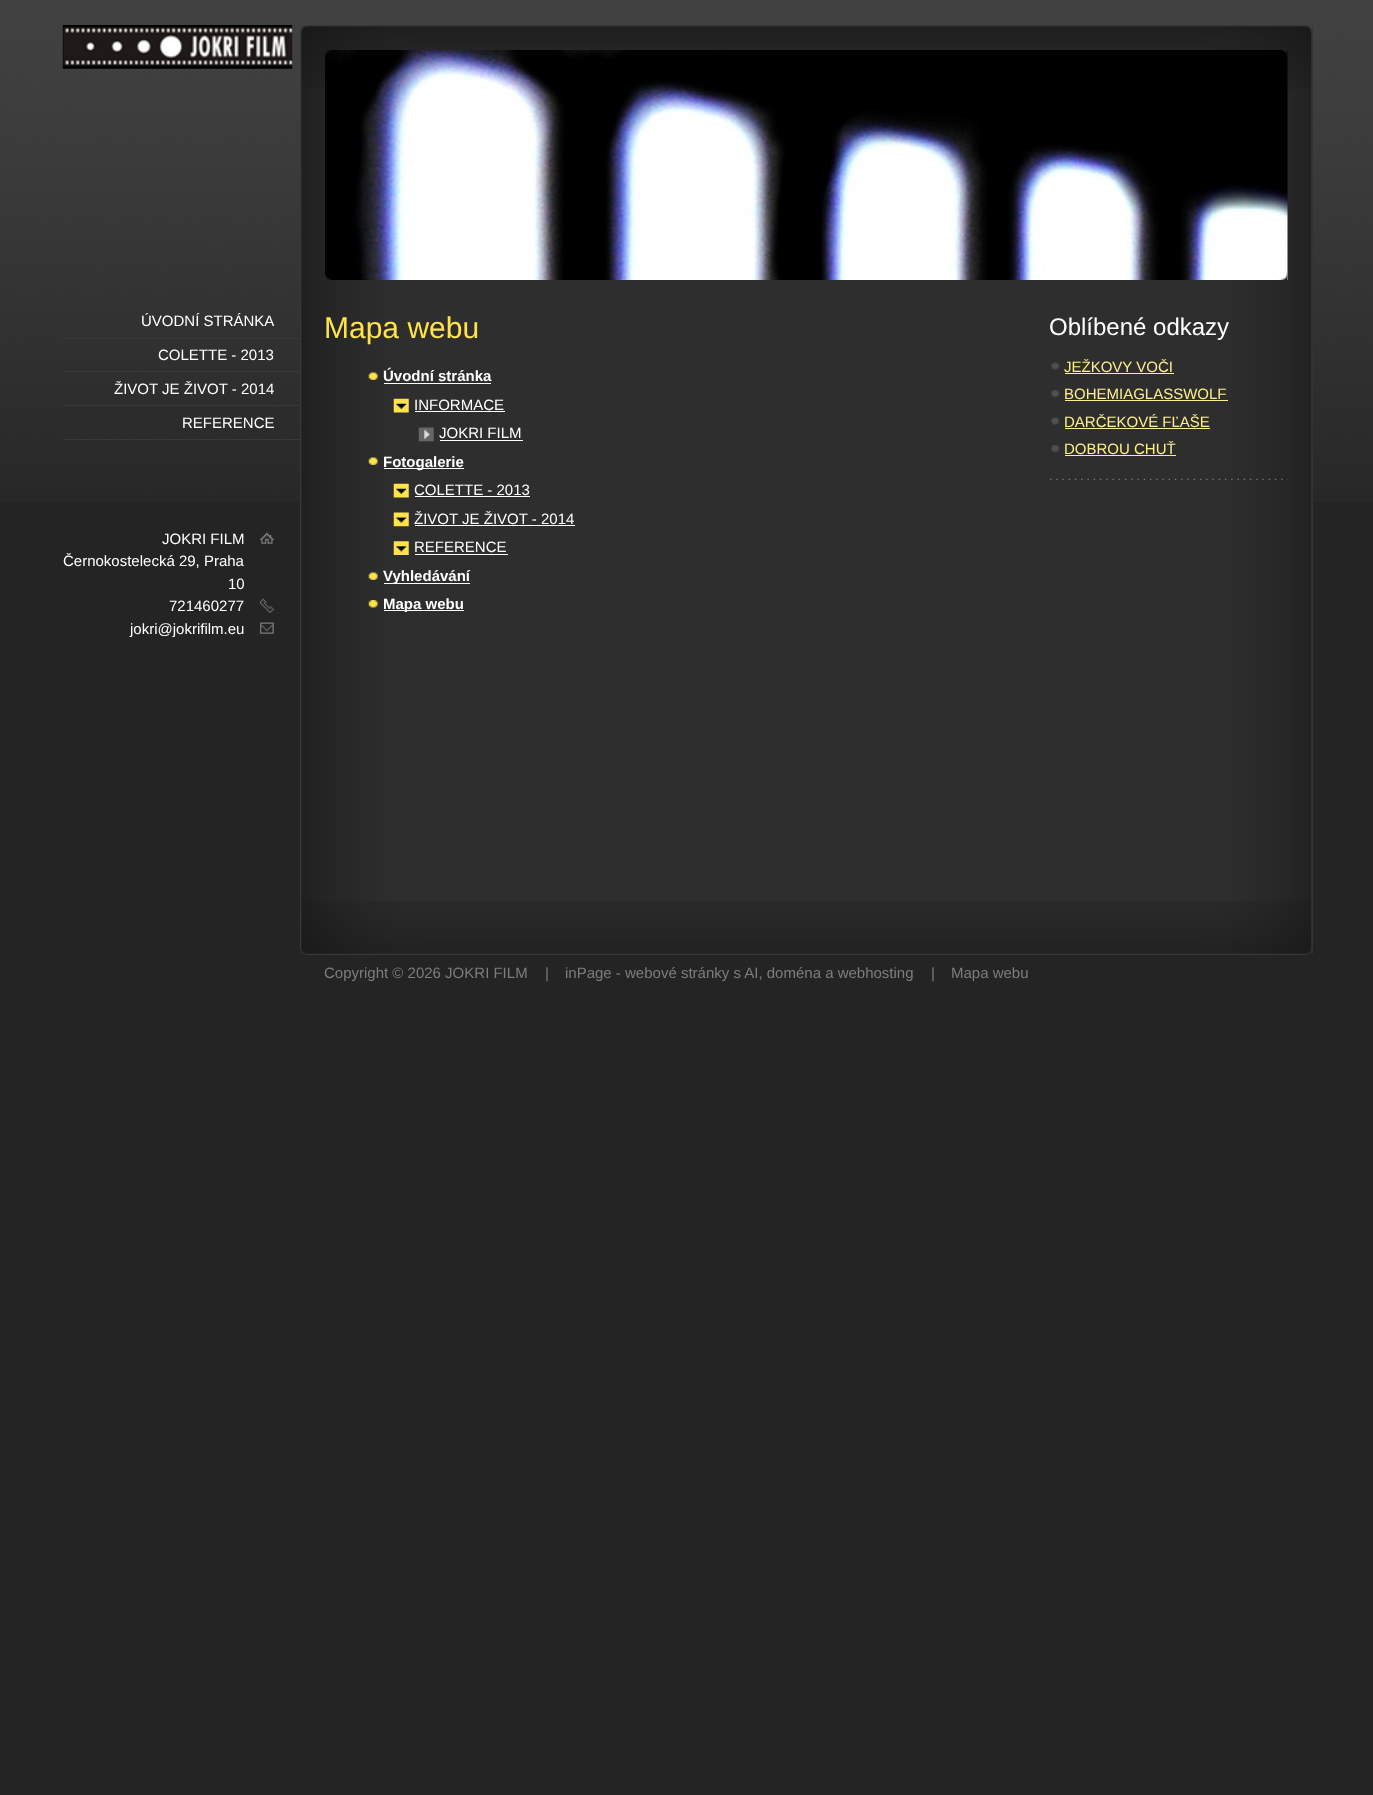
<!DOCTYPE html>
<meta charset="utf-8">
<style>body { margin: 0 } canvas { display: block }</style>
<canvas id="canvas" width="1373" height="1795"></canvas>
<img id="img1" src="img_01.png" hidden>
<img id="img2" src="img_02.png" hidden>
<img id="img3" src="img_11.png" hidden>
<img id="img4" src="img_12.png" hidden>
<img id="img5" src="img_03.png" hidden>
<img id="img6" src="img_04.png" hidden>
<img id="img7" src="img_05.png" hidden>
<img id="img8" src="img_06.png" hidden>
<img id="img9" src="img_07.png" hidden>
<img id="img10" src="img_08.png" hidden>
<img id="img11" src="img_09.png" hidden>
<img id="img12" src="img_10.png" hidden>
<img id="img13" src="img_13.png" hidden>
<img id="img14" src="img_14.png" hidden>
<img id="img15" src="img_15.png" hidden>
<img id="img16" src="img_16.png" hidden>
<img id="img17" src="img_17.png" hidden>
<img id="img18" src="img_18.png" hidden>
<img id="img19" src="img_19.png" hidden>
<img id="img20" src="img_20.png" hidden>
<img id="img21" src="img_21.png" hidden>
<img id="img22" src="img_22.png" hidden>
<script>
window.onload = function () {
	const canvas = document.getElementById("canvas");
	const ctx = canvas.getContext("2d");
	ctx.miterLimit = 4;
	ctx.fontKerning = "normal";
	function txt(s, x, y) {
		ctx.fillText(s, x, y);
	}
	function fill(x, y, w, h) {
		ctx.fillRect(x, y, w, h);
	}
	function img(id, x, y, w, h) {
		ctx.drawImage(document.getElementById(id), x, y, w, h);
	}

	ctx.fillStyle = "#242424";
	fill(0, 0, 1373, 1795);
	img("img1", 0, 0, 1373, 502);
	img("img2", 62, 25, 231, 44);
	ctx.fillStyle = "#2E2E2E";
	fill(1312, 25, 1, 930);
	img("img3", 300, 25, 1013, 930);
	img("img4", 300, 25, 1013, 64);
	img("img5", 325, 50, 963, 230);
	img("img6", 325, 50, 7, 7);
	img("img7", 1281, 50, 6, 6);
	img("img8", 325, 273, 7, 7);
	img("img9", 1279, 271, 9, 9);
	ctx.fillStyle = "#383838";
	fill(63, 338, 237, 1);
	fill(63, 371, 237, 1);
	fill(63, 405, 237, 1);
	fill(63, 439, 237, 1);
	img("img10", 259, 532, 15, 12);
	img("img11", 259, 598, 15, 15);
	img("img12", 259, 622, 15, 12);
	img("img13", 300, 901, 1013, 54);
	img("img14", 368, 372, 10, 8);
	ctx.fillStyle = "#FFFFFF";
	fill(384, 383, 107, 1);
	img("img15", 393, 398, 16, 15);
	fill(415, 411, 90, 1);
	img("img16", 418, 427, 16, 15);
	fill(440, 440, 83, 1);
	img("img14", 368, 457, 10, 8);
	fill(384, 468, 80, 1);
	img("img15", 393, 483, 16, 15);
	fill(415, 496, 115, 1);
	img("img17", 393, 512, 16, 15);
	fill(415, 525, 160, 1);
	img("img18", 393, 541, 16, 14);
	fill(415, 554, 93, 1);
	img("img14", 368, 572, 10, 8);
	fill(384, 583, 86, 1);
	img("img19", 368, 600, 10, 8);
	fill(384, 610, 80, 1);
	img("img20", 1051, 362, 9, 8);
	ctx.fillStyle = "#FFEE8E";
	fill(1065, 373, 109, 1);
	img("img21", 1051, 390, 9, 8);
	fill(1065, 400, 163, 1);
	img("img20", 1051, 417, 9, 8);
	fill(1065, 428, 145, 1);
	img("img21", 1051, 445, 9, 8);
	fill(1065, 455, 111, 1);
	img("img22", 1050, 478, 238, 2);
	ctx.font = "15px Liberation Sans";
	ctx.fillStyle = "#FFFFFF";
	txt("ÚVODNÍ STRÁNKA", 141, 326);
	txt("COLETTE - 2013", 158, 360);
	txt("ŽIVOT JE ŽIVOT - 2014", 114, 394);
	txt("REFERENCE", 182, 428);
	txt("JOKRI FILM", 162, 544);
	txt("Černokostelecká 29, Praha", 63, 566);
	txt("10", 228, 589);
	txt("721460277", 169, 611);
	txt("jokri@jokrifilm.eu", 130, 634);
	ctx.font = "30px Liberation Sans";
	ctx.fillStyle = "#FFE349";
	txt("Mapa webu", 324, 338);
	ctx.font = "bold 15px Liberation Sans";
	ctx.fillStyle = "#FFFFFF";
	txt("Úvodní stránka", 383, 381);
	ctx.font = "15px Liberation Sans";
	txt("INFORMACE", 414, 410);
	txt("JOKRI FILM", 439, 438);
	ctx.font = "bold 15px Liberation Sans";
	txt("Fotogalerie", 383, 467);
	ctx.font = "15px Liberation Sans";
	txt("COLETTE - 2013", 414, 495);
	txt("ŽIVOT JE ŽIVOT - 2014", 414, 524);
	txt("REFERENCE", 414, 552);
	ctx.font = "bold 15px Liberation Sans";
	txt("Vyhledávání", 383, 581);
	txt("Mapa webu", 383, 609);
	ctx.font = "24px Liberation Sans";
	txt("Oblíbené odkazy", 1049, 335);
	ctx.font = "15px Liberation Sans";
	ctx.fillStyle = "#FFEE8E";
	txt("JEŽKOVY VOČI", 1064, 372);
	txt("BOHEMIAGLASSWOLF", 1064, 399);
	txt("DARČEKOVÉ FĽAŠE", 1064, 427);
	txt("DOBROU CHUŤ", 1064, 454);
	ctx.fillStyle = "#7D7D7D";
	txt("Copyright © 2026 JOKRI FILM", 324, 978);
	txt("|", 545, 978);
	txt("inPage - webové stránky s AI, doména a webhosting", 565, 978);
	txt("|", 931, 978);
	txt("Mapa webu", 951, 978);
};
</script>
